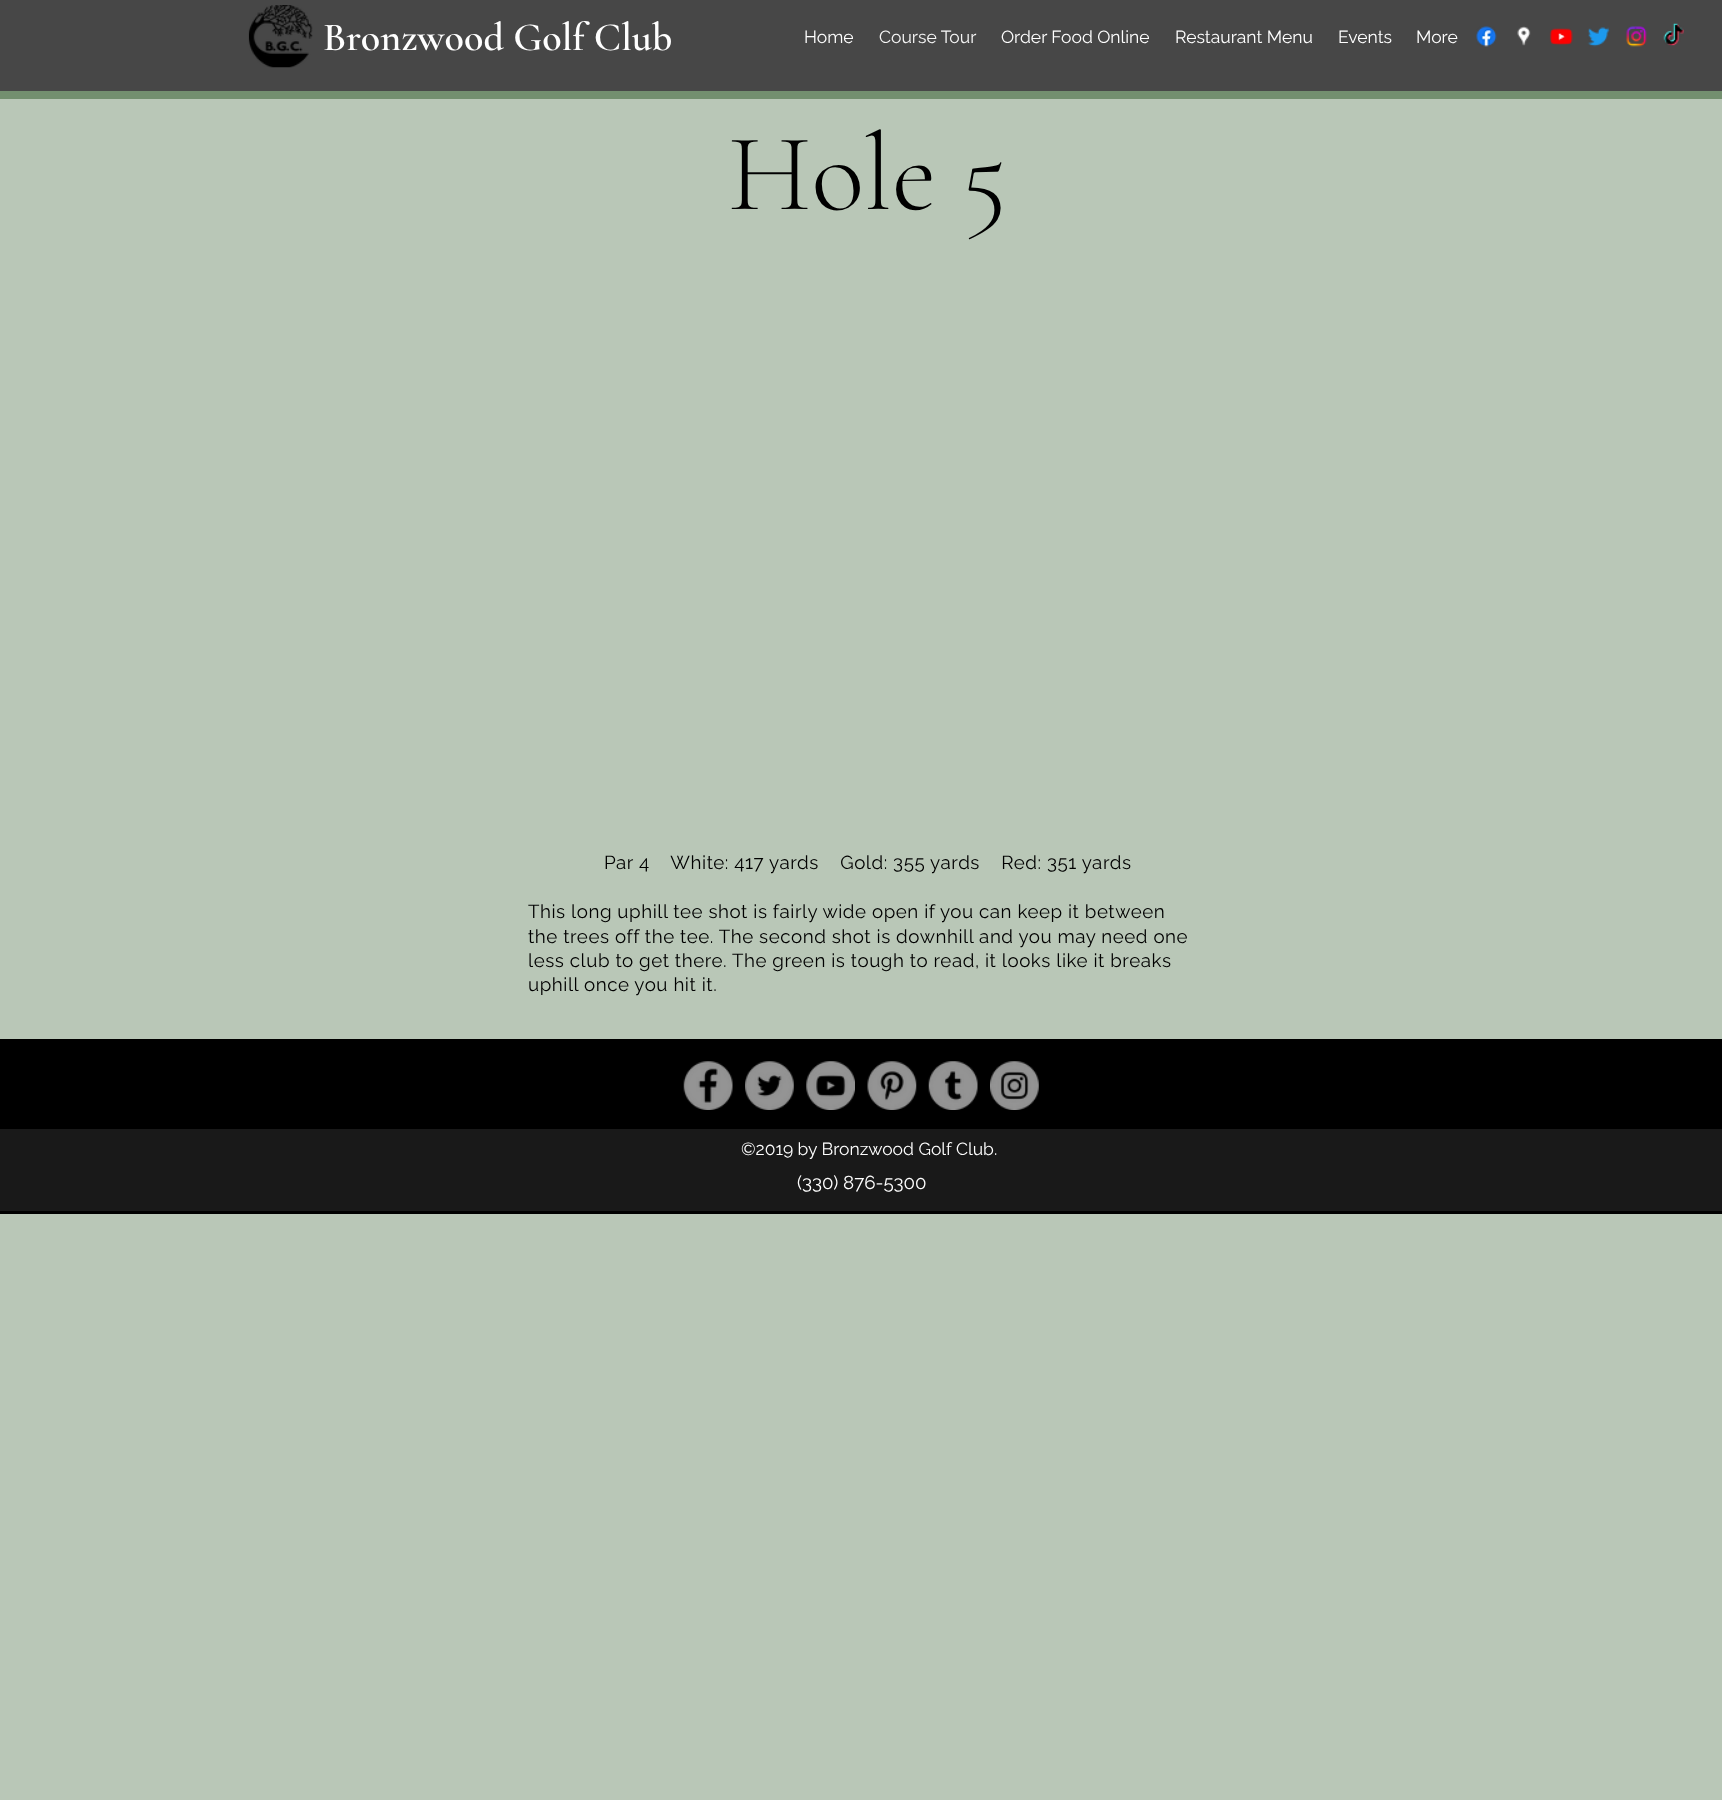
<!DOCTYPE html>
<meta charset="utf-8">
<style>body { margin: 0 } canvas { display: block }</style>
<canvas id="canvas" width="1722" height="1800"></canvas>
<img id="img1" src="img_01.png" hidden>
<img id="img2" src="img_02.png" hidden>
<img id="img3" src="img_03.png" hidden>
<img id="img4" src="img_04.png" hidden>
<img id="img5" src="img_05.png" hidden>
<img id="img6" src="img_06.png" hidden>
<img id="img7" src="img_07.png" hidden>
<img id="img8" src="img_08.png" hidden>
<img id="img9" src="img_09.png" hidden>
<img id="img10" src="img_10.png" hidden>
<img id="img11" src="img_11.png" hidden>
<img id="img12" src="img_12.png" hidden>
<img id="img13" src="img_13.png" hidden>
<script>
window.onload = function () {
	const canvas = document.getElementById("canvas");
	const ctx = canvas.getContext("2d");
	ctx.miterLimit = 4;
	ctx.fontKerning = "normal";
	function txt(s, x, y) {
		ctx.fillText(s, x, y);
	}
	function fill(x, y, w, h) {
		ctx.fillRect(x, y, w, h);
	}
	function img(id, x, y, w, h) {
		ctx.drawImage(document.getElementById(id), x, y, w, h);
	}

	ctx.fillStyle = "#B9C7B7";
	fill(0, 0, 1722, 1800);
	ctx.fillStyle = "#474747";
	fill(0, 0, 1722, 91);
	img("img1", 248, 5, 65, 63);
	img("img2", 1476, 26, 21, 21);
	img("img3", 1517, 26, 14, 20);
	img("img4", 1549, 28, 24, 18);
	img("img5", 1587, 27, 23, 20);
	img("img6", 1626, 26, 21, 21);
	img("img7", 1663, 23, 21, 23);
	ctx.fillStyle = "#738F6F";
	fill(0, 91, 1722, 8);
	ctx.fillStyle = "#000000";
	fill(0, 1039, 1722, 175);
	img("img8", 683, 1061, 50, 49);
	img("img9", 745, 1061, 49, 49);
	img("img10", 806, 1061, 49, 49);
	img("img11", 867, 1061, 50, 49);
	img("img12", 928, 1061, 50, 49);
	img("img13", 990, 1061, 49, 49);
	ctx.fillStyle = "#191919";
	fill(0, 1129, 1722, 82);
	ctx.font = "600 40px Cormorant Garamond";
	ctx.fillStyle = "#FFFFFF";
	txt("Bronzwood Golf Club", 323, 50);
	ctx.font = "17.5px Raleway";
	txt("Home", 804, 43);
	ctx.fillStyle = "#F7F7F7";
	txt("Course Tour", 879, 43);
	ctx.fillStyle = "#FFFFFF";
	txt("Order Food Online", 1001, 43);
	txt("Restaurant Menu", 1175, 43);
	txt("Events", 1338, 43);
	txt("More", 1416, 43);
	ctx.font = "300 110px Cormorant Garamond";
	ctx.fillStyle = "#000000";
	txt("Hole 5", 728, 209);
	ctx.letterSpacing = "0.55px";
	ctx.font = "18.75px Raleway";
	txt("Par 4    White: 417 yards    Gold: 355 yards    Red: 351 yards", 604, 869);
	txt("This long uphill tee shot is fairly wide open if you can keep it between", 528, 918);
	txt("the trees off the tee. The second shot is downhill and you may need one", 528, 943);
	txt("less club to get there. The green is tough to read, it looks like it breaks", 528, 967);
	txt("uphill once you hit it.", 528, 991);
	ctx.letterSpacing = "0px";
	ctx.font = "17.5px Raleway";
	ctx.fillStyle = "#FFFFFF";
	txt("©2019 by Bronzwood Golf Club.", 741, 1155);
	ctx.font = "18.75px Raleway";
	txt("(330) 876-5300", 797, 1189);
};
</script>
